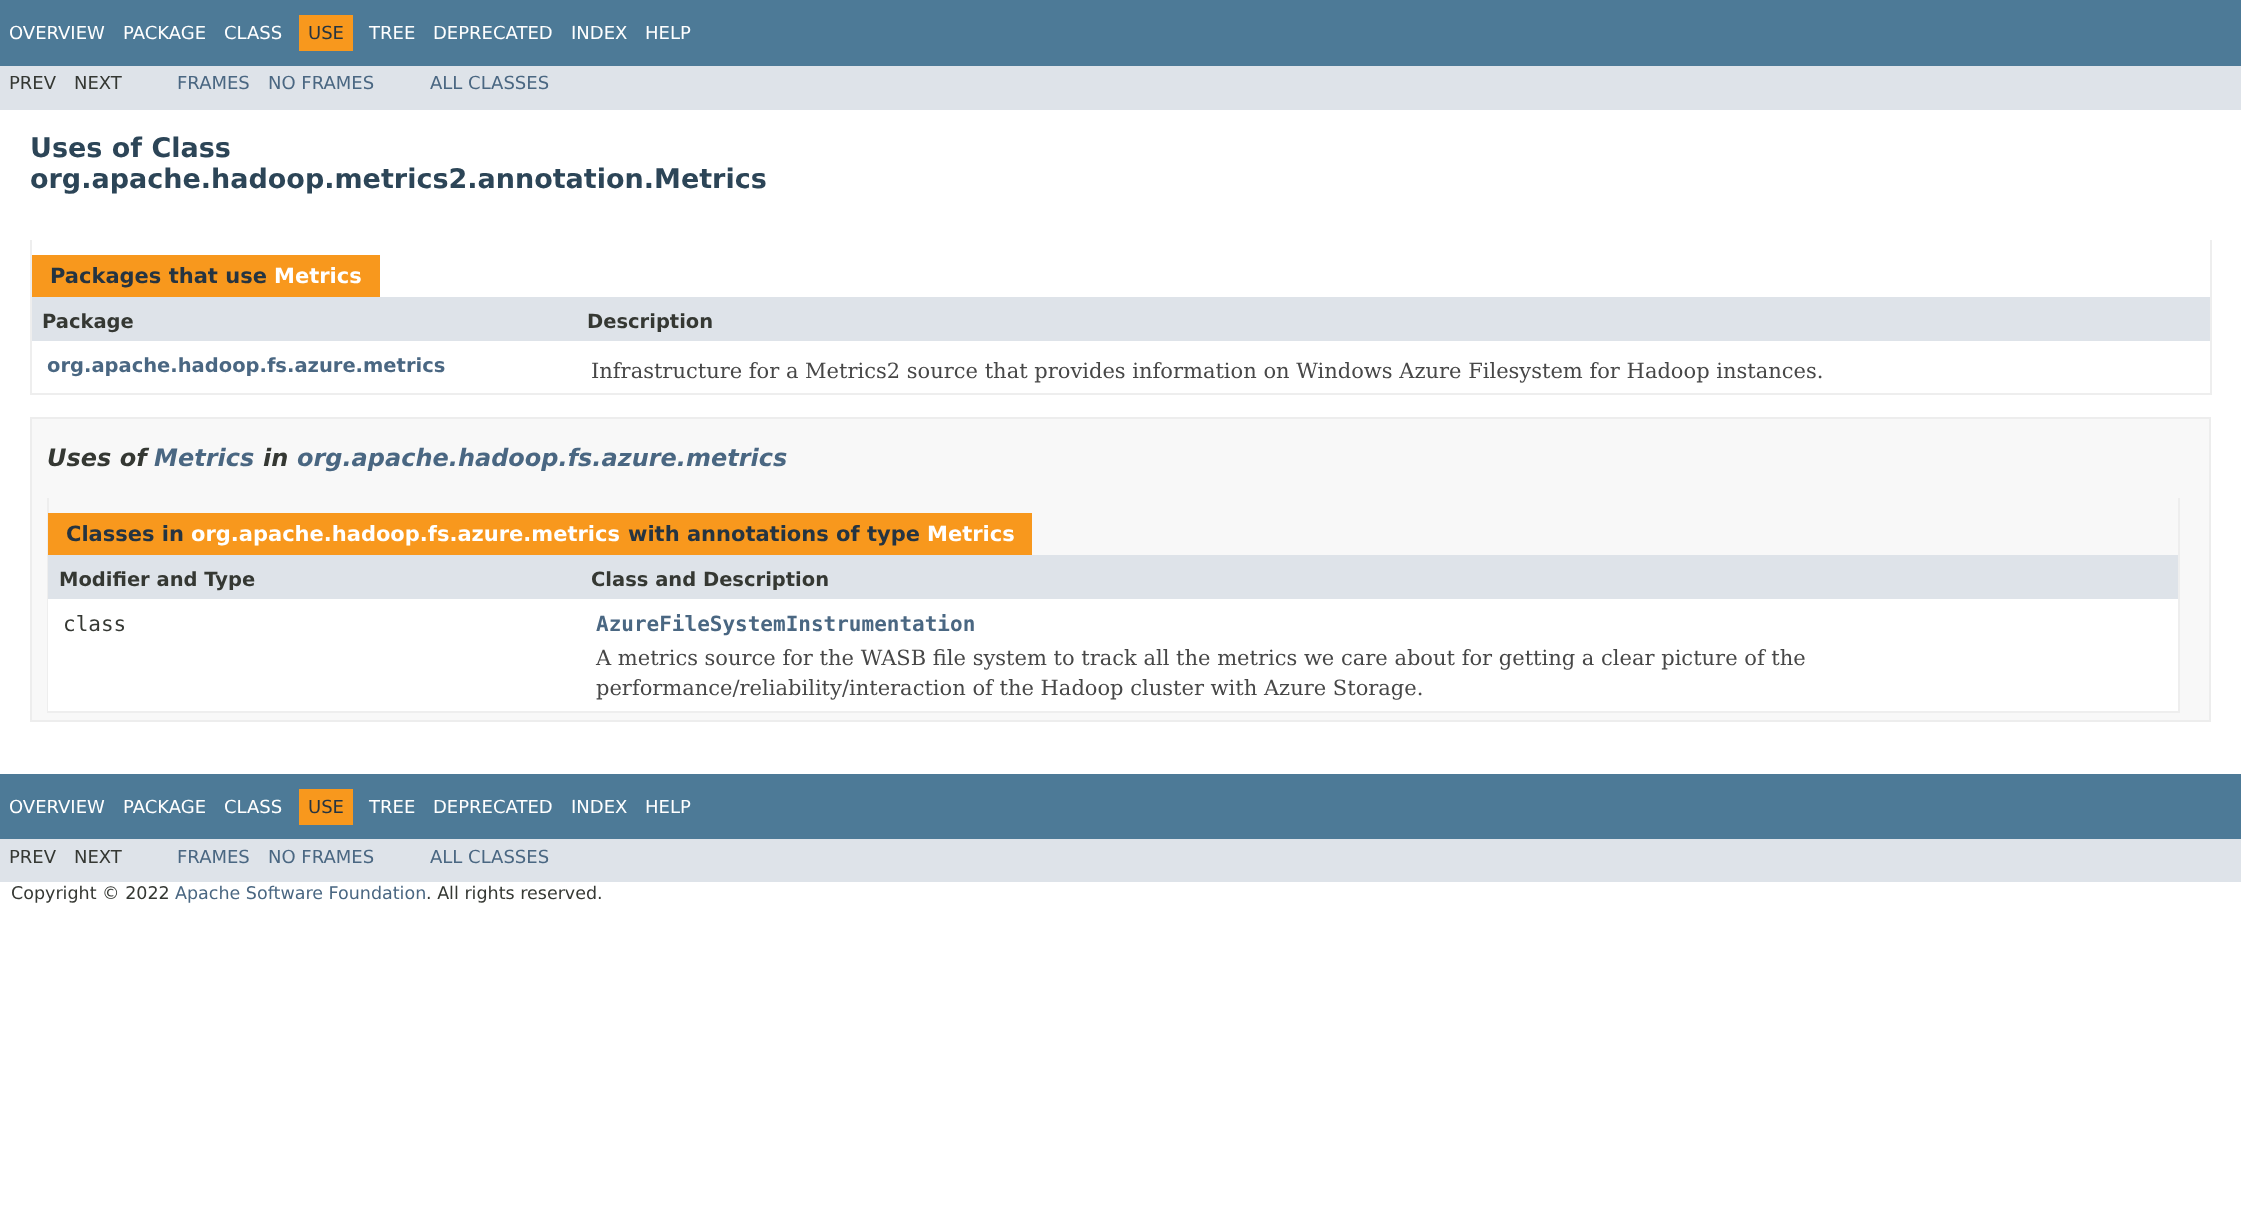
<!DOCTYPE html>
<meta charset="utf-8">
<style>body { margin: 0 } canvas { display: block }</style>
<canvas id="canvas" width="2241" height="1225"></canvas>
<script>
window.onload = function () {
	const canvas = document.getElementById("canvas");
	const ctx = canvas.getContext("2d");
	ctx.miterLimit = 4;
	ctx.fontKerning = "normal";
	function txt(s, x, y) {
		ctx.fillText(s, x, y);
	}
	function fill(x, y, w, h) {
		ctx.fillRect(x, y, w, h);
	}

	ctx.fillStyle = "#FFFFFF";
	fill(0, 0, 2241, 1225);
	ctx.fillStyle = "#4D7A97";
	fill(0, 0, 2241, 66);
	ctx.fillStyle = "#F8981D";
	fill(299, 15, 54, 36);
	ctx.fillStyle = "#DEE3E9";
	fill(0, 66, 2241, 44);
	ctx.fillStyle = "#EEEEEE";
	fill(2210, 240, 2, 155);
	fill(30, 393, 2181, 2);
	fill(30, 240, 2, 155);
	ctx.fillStyle = "#F8981D";
	fill(32, 255, 348, 42);
	ctx.fillStyle = "#DEE3E9";
	fill(32, 297, 2178, 44);
	ctx.fillStyle = "#F8F8F8";
	ctx.beginPath();
	ctx.rect(31, 418, 2179, 303);
	ctx.fill();
	ctx.strokeStyle = "#EDEDED";
	ctx.lineWidth = 2;
	ctx.stroke();
	ctx.fillStyle = "#EEEEEE";
	fill(2178, 498, 2, 215);
	fill(47, 711, 2133, 2);
	fill(47, 498, 2, 215);
	ctx.fillStyle = "#F8981D";
	fill(48, 513, 984, 42);
	ctx.fillStyle = "#DEE3E9";
	fill(48, 555, 2130, 44);
	ctx.fillStyle = "#FFFFFF";
	fill(48, 599, 2130, 112);
	ctx.fillStyle = "#4D7A97";
	fill(0, 774, 2241, 65);
	ctx.fillStyle = "#F8981D";
	fill(299, 789, 54, 36);
	ctx.fillStyle = "#DEE3E9";
	fill(0, 839, 2241, 43);
	ctx.font = "18px DejaVu Sans";
	ctx.fillStyle = "#FFFFFF";
	txt("OVERVIEW", 9, 39);
	txt("PACKAGE", 123, 39);
	txt("CLASS", 224, 39);
	ctx.fillStyle = "#253441";
	txt("USE", 308, 39);
	ctx.fillStyle = "#FFFFFF";
	txt("TREE", 369, 39);
	txt("DEPRECATED", 433, 39);
	txt("INDEX", 571, 39);
	txt("HELP", 645, 39);
	ctx.fillStyle = "#353833";
	txt("PREV", 9, 89);
	txt("NEXT", 74, 89);
	ctx.fillStyle = "#4A6782";
	txt("FRAMES", 177, 89);
	txt("NO FRAMES", 268, 89);
	txt("ALL CLASSES", 430, 89);
	ctx.font = "bold 27px DejaVu Sans";
	ctx.fillStyle = "#2C4557";
	txt("Uses of Class", 30, 157);
	txt("org.apache.hadoop.metrics2.annotation.Metrics", 30, 188);
	ctx.font = "bold 21px DejaVu Sans";
	ctx.fillStyle = "#253441";
	txt("Packages that use", 50, 283);
	ctx.fillStyle = "#FFFFFF";
	txt("Metrics", 274, 283);
	ctx.font = "bold 19.5px DejaVu Sans";
	ctx.fillStyle = "#353833";
	txt("Package", 42, 328);
	txt("Description", 587, 328);
	ctx.fillStyle = "#4A6782";
	txt("org.apache.hadoop.fs.azure.metrics", 47, 372);
	ctx.font = "21px DejaVu Serif";
	ctx.fillStyle = "#474747";
	txt("Infrastructure for a Metrics2 source that provides information on Windows Azure Filesystem for Hadoop instances.", 591, 378);
	ctx.font = "italic bold 24px DejaVu Sans";
	ctx.fillStyle = "#353833";
	txt("Uses of", 47, 466);
	ctx.fillStyle = "#4A6782";
	txt("Metrics", 154, 466);
	ctx.fillStyle = "#353833";
	txt("in", 263, 466);
	ctx.fillStyle = "#4A6782";
	txt("org.apache.hadoop.fs.azure.metrics", 297, 466);
	ctx.font = "bold 21px DejaVu Sans";
	ctx.fillStyle = "#253441";
	txt("Classes in", 66, 541);
	ctx.fillStyle = "#FFFFFF";
	txt("org.apache.hadoop.fs.azure.metrics", 191, 541);
	ctx.fillStyle = "#253441";
	txt("with annotations of type", 628, 541);
	ctx.fillStyle = "#FFFFFF";
	txt("Metrics", 927, 541);
	ctx.font = "bold 19.5px DejaVu Sans";
	ctx.fillStyle = "#353833";
	txt("Modifier and Type", 59, 586);
	txt("Class and Description", 591, 586);
	ctx.font = "21px DejaVu Sans Mono";
	txt("class", 63, 631);
	ctx.font = "bold 21px DejaVu Sans Mono";
	ctx.fillStyle = "#4A6782";
	txt("AzureFileSystemInstrumentation", 596, 631);
	ctx.font = "21px DejaVu Serif";
	ctx.fillStyle = "#474747";
	txt("A metrics source for the WASB file system to track all the metrics we care about for getting a clear picture of the", 596, 665);
	txt("performance/reliability/interaction of the Hadoop cluster with Azure Storage.", 596, 695);
	ctx.font = "18px DejaVu Sans";
	ctx.fillStyle = "#FFFFFF";
	txt("OVERVIEW", 9, 813);
	txt("PACKAGE", 123, 813);
	txt("CLASS", 224, 813);
	ctx.fillStyle = "#253441";
	txt("USE", 308, 813);
	ctx.fillStyle = "#FFFFFF";
	txt("TREE", 369, 813);
	txt("DEPRECATED", 433, 813);
	txt("INDEX", 571, 813);
	txt("HELP", 645, 813);
	ctx.fillStyle = "#353833";
	txt("PREV", 9, 863);
	txt("NEXT", 74, 863);
	ctx.fillStyle = "#4A6782";
	txt("FRAMES", 177, 863);
	txt("NO FRAMES", 268, 863);
	txt("ALL CLASSES", 430, 863);
	ctx.font = "17.5px DejaVu Sans";
	ctx.fillStyle = "#353833";
	txt("Copyright © 2022", 11, 899);
	ctx.fillStyle = "#4A6782";
	txt("Apache Software Foundation", 175, 899);
	ctx.fillStyle = "#353833";
	txt(". All rights reserved.", 426, 899);
};
</script>
